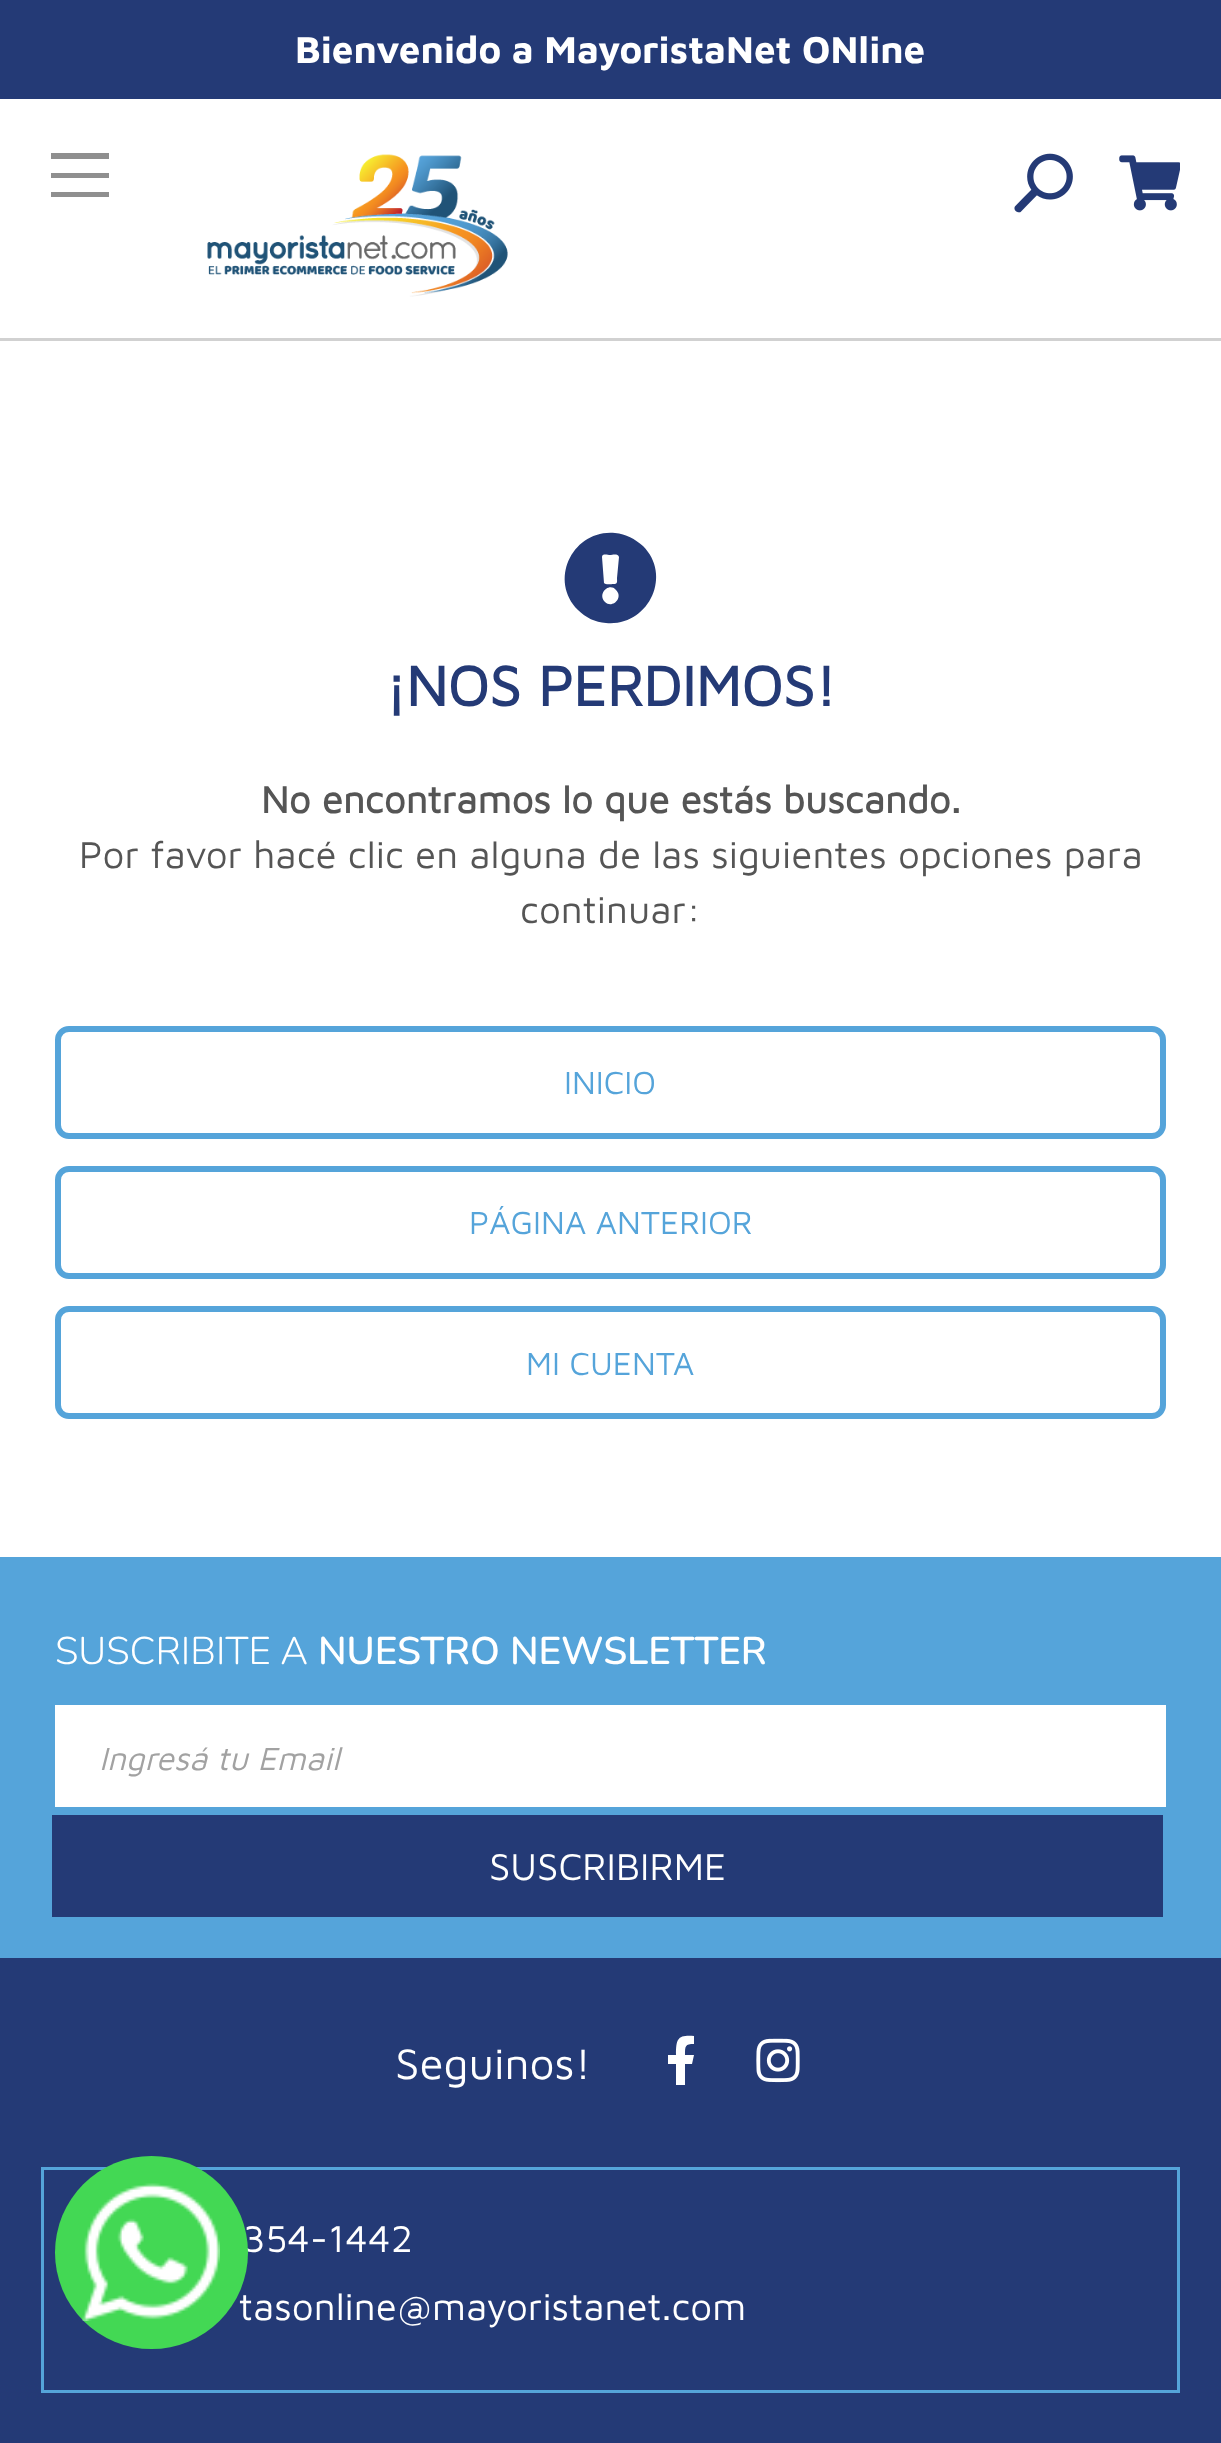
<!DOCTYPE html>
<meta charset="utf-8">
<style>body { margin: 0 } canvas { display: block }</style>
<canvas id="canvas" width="1221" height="2443"></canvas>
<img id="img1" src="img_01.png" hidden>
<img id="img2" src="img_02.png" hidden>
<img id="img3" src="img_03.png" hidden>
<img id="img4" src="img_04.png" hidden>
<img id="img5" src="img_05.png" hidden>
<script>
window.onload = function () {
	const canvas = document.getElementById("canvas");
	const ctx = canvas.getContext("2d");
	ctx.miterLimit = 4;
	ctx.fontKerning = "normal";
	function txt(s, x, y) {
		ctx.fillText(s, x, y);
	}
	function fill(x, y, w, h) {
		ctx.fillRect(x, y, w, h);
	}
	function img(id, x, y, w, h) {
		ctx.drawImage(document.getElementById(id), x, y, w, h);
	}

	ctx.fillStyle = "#FFFFFF";
	fill(0, 0, 1221, 2443);
	ctx.fillStyle = "#D1D1D1";
	fill(0, 338, 1221, 3);
	ctx.fillStyle = "#243A76";
	fill(0, 0, 1221, 99);
	ctx.fillStyle = "#8F8F8F";
	ctx.beginPath();
	ctx.moveTo(51, 153);
	ctx.lineTo(51, 159);
	ctx.lineTo(109, 159);
	ctx.lineTo(109, 153);
	ctx.closePath();
	ctx.moveTo(51, 178);
	ctx.lineTo(109, 178);
	ctx.lineTo(109, 173);
	ctx.lineTo(51, 173);
	ctx.closePath();
	ctx.moveTo(51, 197);
	ctx.lineTo(109, 197);
	ctx.lineTo(109, 192);
	ctx.lineTo(51, 192);
	ctx.closePath();
	ctx.fill();
	img("img1", 207, 154, 301, 143);
	img("img2", 1014, 153, 59, 60);
	img("img3", 1119, 155, 61, 56);
	ctx.fillStyle = "#243A76";
	ctx.beginPath();
	ctx.moveTo(643, 546);
	ctx.bezierCurveTo(673, 576, 648, 627, 606, 623);
	ctx.bezierCurveTo(595, 622, 586, 618, 578, 610);
	ctx.bezierCurveTo(548, 580, 573, 529, 615, 533);
	ctx.bezierCurveTo(626, 534, 635, 539, 643, 546);
	ctx.closePath();
	ctx.moveTo(616, 590);
	ctx.bezierCurveTo(609, 582, 597, 594, 605, 602);
	ctx.bezierCurveTo(612, 609, 624, 598, 616, 590);
	ctx.closePath();
	ctx.moveTo(602, 557);
	ctx.lineTo(604, 583);
	ctx.bezierCurveTo(605, 585, 612, 584, 613, 584);
	ctx.bezierCurveTo(618, 584, 617, 582, 617, 578);
	ctx.lineTo(619, 557);
	ctx.bezierCurveTo(618, 553, 612, 555, 610, 555);
	ctx.bezierCurveTo(608, 555, 602, 553, 602, 557);
	ctx.closePath();
	ctx.fill();
	ctx.beginPath();
	ctx.roundRect(58, 1029, 1105, 107, 11);
	ctx.strokeStyle = "#55A4DA";
	ctx.lineWidth = 6;
	ctx.stroke();
	ctx.beginPath();
	ctx.roundRect(58, 1169, 1105, 107, 11);
	ctx.stroke();
	ctx.beginPath();
	ctx.roundRect(58, 1309, 1105, 107, 11);
	ctx.stroke();
	fill(0, 1958, 1221, 485);
	ctx.fillStyle = "#55A4DA";
	fill(0, 1557, 1221, 401);
	ctx.fillStyle = "#FFFFFF";
	fill(55, 1705, 1111, 102);
	ctx.fillStyle = "#243A76";
	fill(52, 1815, 1111, 102);
	ctx.fillStyle = "#FFFFFF";
	ctx.beginPath();
	ctx.moveTo(692, 2064);
	ctx.lineTo(685, 2064);
	ctx.lineTo(685, 2085);
	ctx.lineTo(676, 2085);
	ctx.lineTo(676, 2064);
	ctx.lineTo(668, 2064);
	ctx.lineTo(668, 2055);
	ctx.lineTo(676, 2055);
	ctx.bezierCurveTo(676, 2038, 678, 2035, 694, 2036);
	ctx.lineTo(694, 2044);
	ctx.bezierCurveTo(685, 2044, 685, 2046, 685, 2055);
	ctx.lineTo(694, 2055);
	ctx.closePath();
	ctx.fill();
	img("img4", 756, 2038, 44, 45);
	ctx.lineWidth = 3;
	ctx.strokeRect(42.5, 2168.5, 1136, 223);
	ctx.font = "bold 38.5px 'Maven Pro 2'";
	txt("Bienvenido a MayoristaNet ONline", 295, 63);
	ctx.font = "bold 57.75px Maven Pro";
	ctx.fillStyle = "#243A76";
	txt("¡NOS PERDIMOS!", 385, 706);
	ctx.font = "bold 38.5px Maven Pro";
	ctx.fillStyle = "#555555";
	txt("No encontramos lo que estás buscando.", 261, 813);
	ctx.font = "38.5px Maven Pro";
	txt("Por favor hacé clic en alguna de las siguientes opciones para", 79, 868);
	txt("continuar:", 520, 923);
	ctx.font = "33px Maven Pro";
	ctx.fillStyle = "#55A4DA";
	txt("INICIO", 564, 1094);
	txt("PÁGINA ANTERIOR", 469, 1234);
	txt("MI CUENTA", 526, 1375);
	ctx.font = "300 38.5px Nunito";
	ctx.fillStyle = "#FFFFFF";
	txt("SUSCRIBITE A", 55, 1664);
	ctx.font = "600 38.5px Nunito";
	txt("NUESTRO NEWSLETTER", 318, 1664);
	ctx.font = "italic 33px Maven Pro";
	ctx.fillStyle = "#A2A2A2";
	txt("Ingresá tu Email", 99, 1770);
	ctx.font = "38.5px Maven Pro";
	ctx.fillStyle = "#FFFFFF";
	txt("SUSCRIBIRME", 489, 1880);
	ctx.font = "44px Maven Pro";
	txt("Seguinos!", 395, 2079);
	ctx.font = "38.5px Maven Pro";
	txt("354-1442", 243, 2252);
	txt("tasonline@mayoristanet.com", 239, 2320);
	ctx.fillStyle = "#43D854";
	ctx.beginPath();
	ctx.arc(151.5, 2252.5, 96.5, 0, Math.PI * 2);
	ctx.fill();
	img("img5", 82, 2183, 138, 138);
};
</script>
